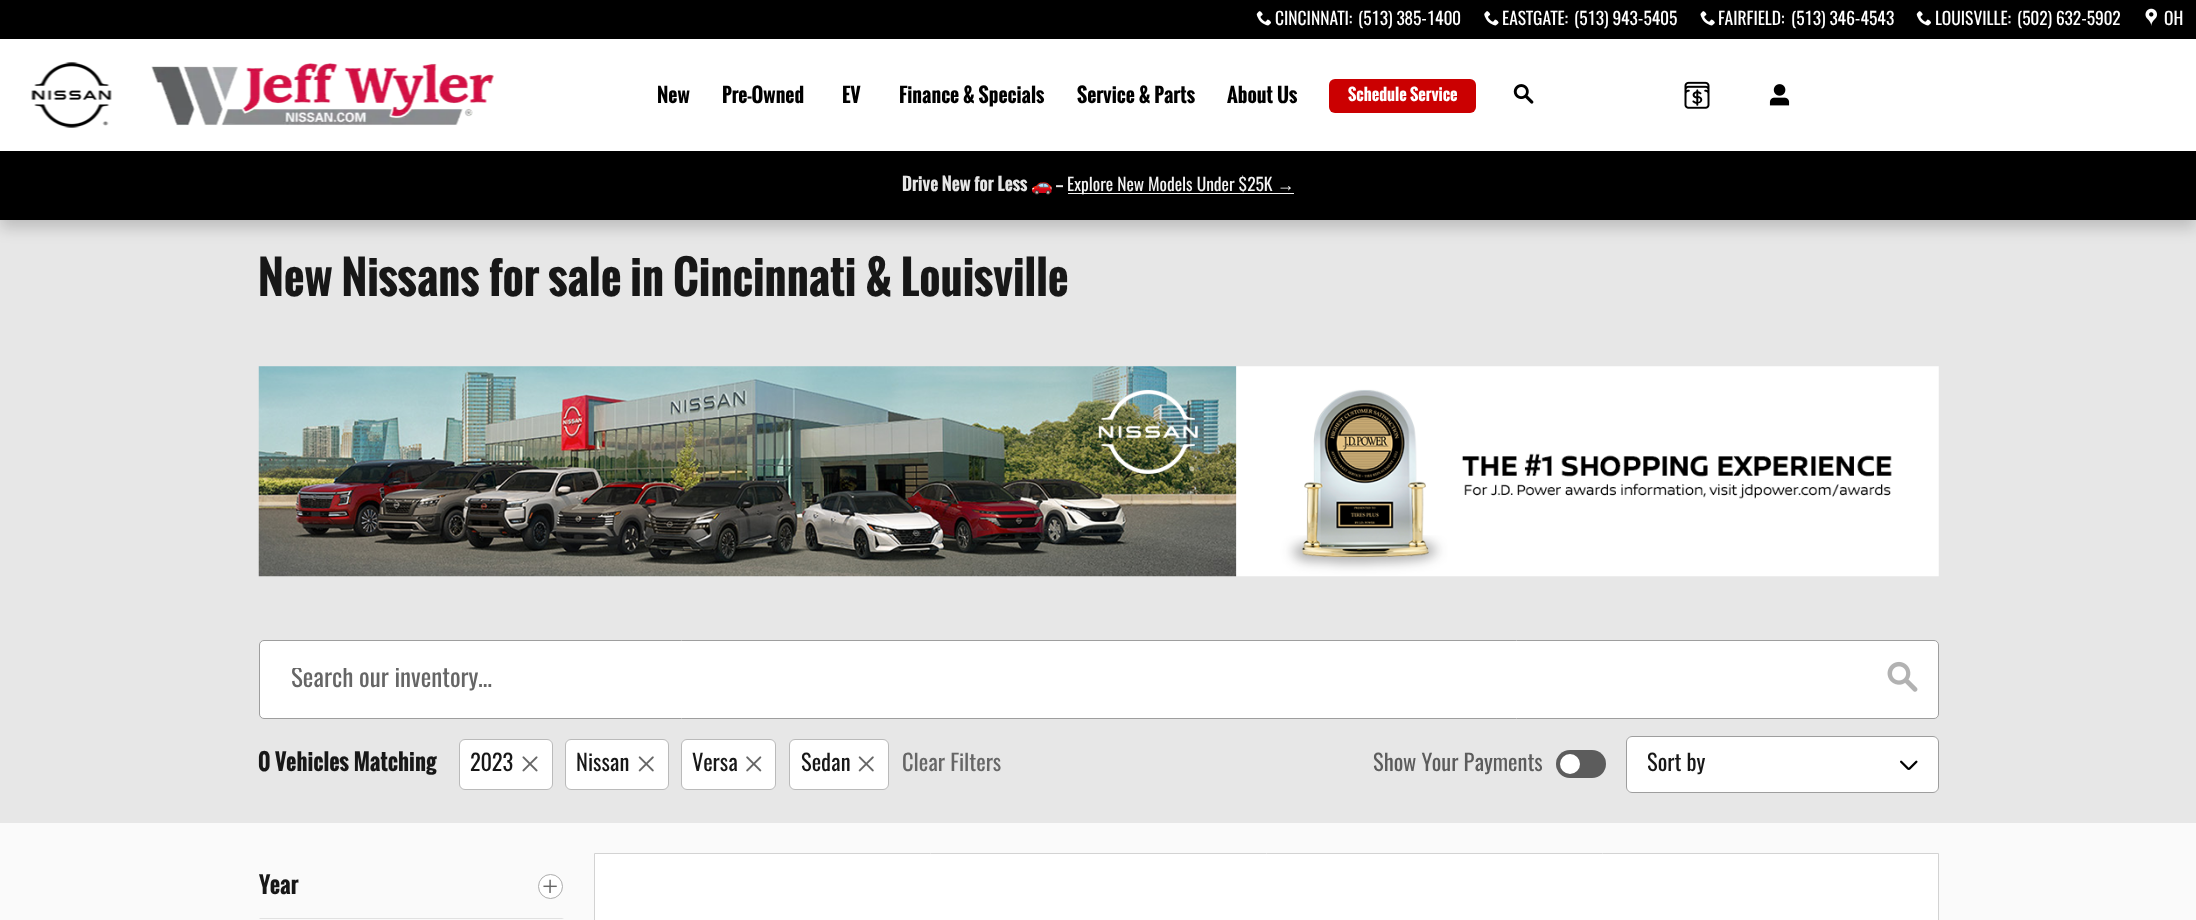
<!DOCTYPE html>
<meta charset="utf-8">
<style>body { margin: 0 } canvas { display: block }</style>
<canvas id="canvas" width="2196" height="920"></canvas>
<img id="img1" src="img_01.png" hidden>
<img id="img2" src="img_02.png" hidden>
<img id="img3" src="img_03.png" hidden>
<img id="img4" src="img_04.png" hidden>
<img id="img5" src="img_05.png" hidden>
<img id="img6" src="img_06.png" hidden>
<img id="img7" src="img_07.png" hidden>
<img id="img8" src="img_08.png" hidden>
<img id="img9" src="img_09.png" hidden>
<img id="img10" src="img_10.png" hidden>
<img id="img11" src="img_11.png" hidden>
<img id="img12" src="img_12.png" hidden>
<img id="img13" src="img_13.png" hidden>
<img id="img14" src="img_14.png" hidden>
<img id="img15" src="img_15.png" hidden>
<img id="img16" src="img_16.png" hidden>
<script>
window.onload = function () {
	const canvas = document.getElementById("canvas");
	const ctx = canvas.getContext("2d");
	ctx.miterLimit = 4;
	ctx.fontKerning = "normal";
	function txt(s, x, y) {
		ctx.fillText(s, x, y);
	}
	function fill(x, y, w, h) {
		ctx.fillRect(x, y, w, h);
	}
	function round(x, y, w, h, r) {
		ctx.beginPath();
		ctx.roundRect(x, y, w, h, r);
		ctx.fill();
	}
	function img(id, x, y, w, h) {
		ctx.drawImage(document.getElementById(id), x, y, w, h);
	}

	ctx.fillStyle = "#FAFAFA";
	fill(0, 0, 2196, 920);
	ctx.fillStyle = "#E7E7E7";
	fill(0, 220, 2196, 603);
	ctx.fillStyle = "rgba(0, 0, 0, 0.18)";
	ctx.filter = "blur(7.5px)";
	ctx.beginPath();
	ctx.rect(0, 8, 2196, 220);
	ctx.fill();
	ctx.filter = "none";
	ctx.fillStyle = "#FFFFFF";
	fill(0, 39, 2196, 112);
	ctx.fillStyle = "#000000";
	fill(0, 0, 2196, 39);
	img("img1", 1256, 11, 15, 15);
	img("img2", 1484, 11, 15, 15);
	img("img3", 1700, 11, 15, 15);
	img("img1", 1916, 11, 15, 15);
	img("img4", 2145, 8, 12, 18);
	img("img5", 31, 62, 81, 66);
	img("img6", 151, 63, 343, 63);
	ctx.fillStyle = "#CB0001";
	round(1329, 79, 147, 34, 6);
	img("img7", 1513, 84, 21, 20);
	img("img8", 1684, 81, 26, 28);
	img("img9", 1769, 84, 21, 22);
	ctx.fillStyle = "#000000";
	fill(0, 151, 2196, 69);
	ctx.fillStyle = "#F3F3F3";
	fill(1068, 193, 226, 1);
	img("img10", 258, 366, 1681, 211);
	ctx.fillStyle = "#FFFFFF";
	ctx.beginPath();
	ctx.roundRect(259.5, 640.5, 1679, 78, 4.5);
	ctx.fill();
	ctx.strokeStyle = "#9E9E9E";
	ctx.stroke();
	img("img11", 1887, 661, 31, 31);
	ctx.beginPath();
	ctx.roundRect(459.5, 739.5, 93, 50, 5.5);
	ctx.fill();
	ctx.strokeStyle = "#BABABA";
	ctx.stroke();
	img("img12", 522, 756, 16, 16);
	ctx.beginPath();
	ctx.roundRect(565.5, 739.5, 103, 50, 5.5);
	ctx.fill();
	ctx.stroke();
	img("img13", 638, 756, 16, 16);
	ctx.beginPath();
	ctx.roundRect(681.5, 739.5, 94, 50, 5.5);
	ctx.fill();
	ctx.stroke();
	img("img14", 746, 756, 16, 16);
	ctx.beginPath();
	ctx.roundRect(789.5, 739.5, 99, 50, 5.5);
	ctx.fill();
	ctx.stroke();
	img("img13", 858, 756, 16, 16);
	ctx.fillStyle = "#5C5C5C";
	round(1556, 750, 50, 28, 14);
	ctx.fillStyle = "#FFFFFF";
	ctx.beginPath();
	ctx.arc(1570, 764, 10, 0, Math.PI * 2);
	ctx.fill();
	round(1626, 736, 313, 57, 6);
	img("img15", 1900, 760, 18, 10);
	ctx.beginPath();
	ctx.roundRect(1626.5, 736.5, 312, 56, 5.5);
	ctx.strokeStyle = "#9E9E9E";
	ctx.stroke();
	ctx.fillStyle = "#E1E1E1";
	ctx.beginPath();
	ctx.moveTo(564, 919);
	ctx.lineTo(259, 919);
	ctx.lineTo(260, 918);
	ctx.lineTo(562, 918);
	ctx.closePath();
	ctx.fill();
	ctx.fillStyle = "#FFFFFF";
	ctx.beginPath();
	ctx.arc(550.5, 886.5, 12, 0, Math.PI * 2);
	ctx.fill();
	ctx.strokeStyle = "#ACACAC";
	ctx.stroke();
	img("img16", 543, 879, 14, 14);
	ctx.beginPath();
	ctx.rect(594.5, 853.5, 1344, 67);
	ctx.fill();
	ctx.strokeStyle = "#D3D3D3";
	ctx.stroke();
	ctx.font = "17.5px Oswald";
	txt("CINCINNATI:", 1275, 25);
	txt("(513) 385-1400", 1358, 25);
	txt("EASTGATE:", 1502, 25);
	txt("(513) 943-5405", 1574, 25);
	txt("FAIRFIELD:", 1718, 25);
	txt("(513) 346-4543", 1791, 25);
	txt("LOUISVILLE:", 1935, 25);
	txt("(502) 632-5902", 2017, 25);
	txt("OH", 2164, 25);
	ctx.font = "bold 19.75px Oswald";
	ctx.fillStyle = "#000000";
	txt("New", 657, 103);
	txt("Pre-Owned", 722, 103);
	txt("EV", 842, 103);
	txt("Finance & Specials", 899, 103);
	txt("Service & Parts", 1077, 103);
	txt("About Us", 1227, 103);
	ctx.font = "bold 16.25px Oswald";
	ctx.fillStyle = "#FFFFFF";
	txt("Schedule Service", 1348, 101);
	ctx.font = "bold 17.5px Oswald";
	ctx.fillStyle = "#E6E6E6";
	txt("Drive New for Less", 902, 191);
	ctx.font = "bold 17.5px Noto Color Emoji";
	txt("🚗", 1031, 191);
	ctx.font = "bold 17.5px Oswald";
	txt("—", 1056, 191);
	ctx.font = "17.5px Oswald";
	ctx.fillStyle = "#F3F3F3";
	txt("Explore New Models Under $25K", 1067, 191);
	ctx.font = "17.5px Liberation Sans";
	txt("→", 1277, 191);
	ctx.font = "bold 45px Oswald";
	ctx.fillStyle = "#171717";
	txt("New Nissans for sale in Cincinnati & Louisville", 258, 296);
	ctx.save();
	ctx.beginPath();
	ctx.rect(291, 668, 1540, 25);
	ctx.clip();
	ctx.font = "25px Oswald";
	ctx.fillStyle = "#666666";
	txt("Search our inventory…", 291, 687);
	ctx.restore();
	ctx.font = "bold 22.5px Oswald";
	txt("0 Vehicles Matching", 258, 771);
	ctx.font = "22.5px Oswald";
	txt("2023", 470, 771);
	txt("Nissan", 576, 771);
	txt("Versa", 692, 771);
	txt("Sedan", 801, 771);
	ctx.fillStyle = "#666666";
	txt("Clear Filters", 902, 771);
	ctx.fillStyle = "#5C5C5C";
	txt("Show Your Payments", 1373, 771);
	ctx.save();
	ctx.beginPath();
	ctx.rect(1648, 748, 242, 33);
	ctx.clip();
	ctx.fillStyle = "#171717";
	txt("Sort by", 1647, 771);
	ctx.restore();
	ctx.font = "bold 22.5px Oswald";
	ctx.fillStyle = "#171717";
	txt("Year", 259, 894);
};
</script>
